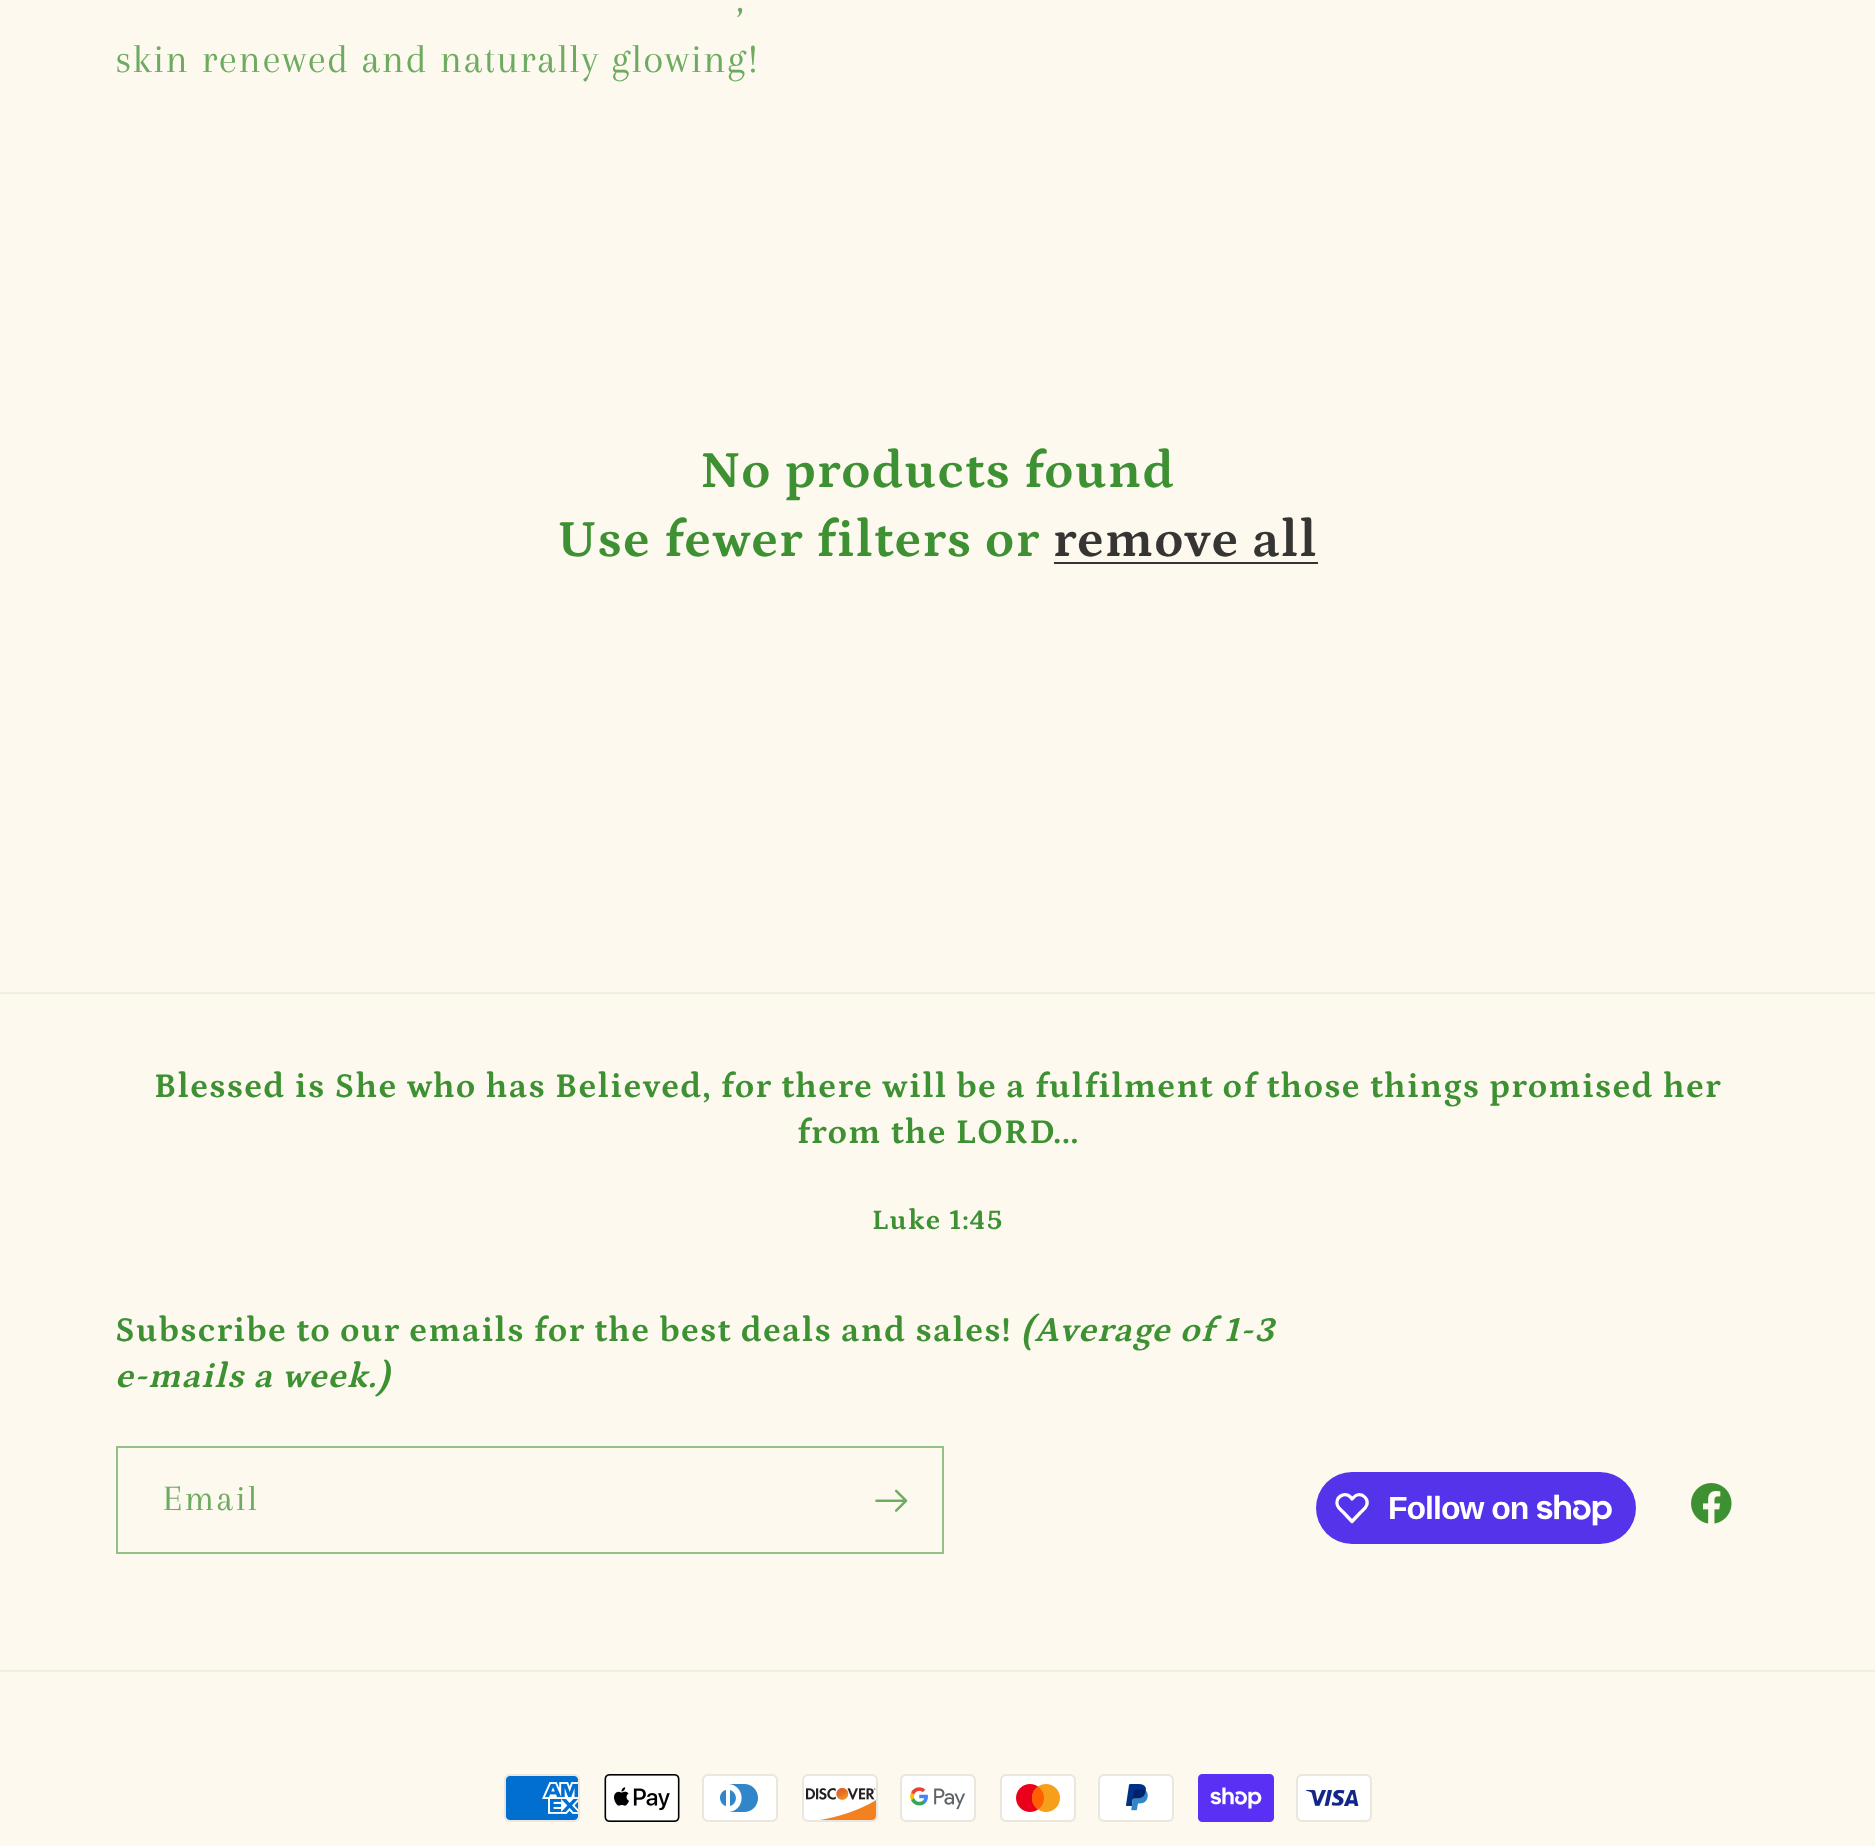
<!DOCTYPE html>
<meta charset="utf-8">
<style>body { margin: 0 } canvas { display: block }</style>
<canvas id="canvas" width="1875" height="1846"></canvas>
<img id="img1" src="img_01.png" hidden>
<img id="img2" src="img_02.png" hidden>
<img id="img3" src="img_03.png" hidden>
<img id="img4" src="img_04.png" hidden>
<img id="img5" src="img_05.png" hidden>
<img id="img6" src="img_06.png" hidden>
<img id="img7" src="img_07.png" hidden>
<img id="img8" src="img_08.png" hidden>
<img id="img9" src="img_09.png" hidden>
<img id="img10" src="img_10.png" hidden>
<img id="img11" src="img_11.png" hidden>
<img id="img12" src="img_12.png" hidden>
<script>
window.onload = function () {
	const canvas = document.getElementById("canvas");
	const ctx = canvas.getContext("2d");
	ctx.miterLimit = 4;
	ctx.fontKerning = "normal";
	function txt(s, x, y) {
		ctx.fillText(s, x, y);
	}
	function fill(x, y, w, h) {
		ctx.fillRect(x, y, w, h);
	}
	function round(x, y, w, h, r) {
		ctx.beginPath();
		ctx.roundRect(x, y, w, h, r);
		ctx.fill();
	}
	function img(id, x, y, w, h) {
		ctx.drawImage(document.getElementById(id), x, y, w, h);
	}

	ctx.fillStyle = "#FDF9EF";
	fill(0, 0, 1875, 1846);
	ctx.fillStyle = "#353533";
	fill(1054, 562, 264, 2);
	ctx.fillStyle = "#EEF1E0";
	fill(0, 992, 1875, 2);
	ctx.strokeStyle = "#93C087";
	ctx.lineWidth = 2;
	ctx.strokeRect(117, 1447, 826, 106);
	img("img1", 875, 1489, 33, 23);
	ctx.fillStyle = "#5433EB";
	round(1316, 1472, 320, 72, 36);
	ctx.beginPath();
	ctx.moveTo(1350.5, 1497);
	ctx.lineTo(1352, 1499);
	ctx.bezierCurveTo(1353.5, 1497.5, 1355, 1495.5, 1357, 1495);
	ctx.bezierCurveTo(1363, 1493, 1369, 1499.5, 1366.5, 1505.5);
	ctx.bezierCurveTo(1365.5, 1508.5, 1362.5, 1510.5, 1360.5, 1512.5);
	ctx.lineTo(1352, 1521.5);
	ctx.lineTo(1343.5, 1512.5);
	ctx.bezierCurveTo(1341.5, 1510.5, 1338.5, 1508.5, 1337.5, 1505.5);
	ctx.bezierCurveTo(1334.5, 1497.5, 1344.5, 1491, 1350.5, 1497);
	ctx.closePath();
	ctx.strokeStyle = "#FFFFFF";
	ctx.lineWidth = 3.3;
	ctx.lineJoin = "round";
	ctx.stroke();
	img("img2", 1537, 1494, 75, 32);
	img("img3", 1691, 1483, 41, 41);
	ctx.fillStyle = "#EEF1E0";
	fill(0, 1670, 1875, 2);
	img("img4", 504, 1774, 76, 48);
	img("img5", 604, 1774, 76, 48);
	img("img6", 702, 1774, 76, 48);
	img("img7", 802, 1774, 76, 48);
	img("img8", 900, 1774, 76, 48);
	img("img9", 1000, 1774, 76, 48);
	img("img10", 1098, 1774, 76, 48);
	img("img11", 1198, 1774, 76, 48);
	img("img12", 1296, 1774, 76, 48);
	ctx.letterSpacing = "1.4px";
	ctx.font = "41.4px Arapey";
	ctx.fillStyle = "#6DAB61";
	txt(",", 736, 12);
	txt("skin renewed and naturally glowing!", 115, 72);
	ctx.letterSpacing = "1.32px";
	ctx.font = "bold 52.75px Petrona";
	ctx.fillStyle = "#3D9132";
	txt("No products found", 700, 487);
	txt("Use fewer filters or", 558, 556);
	ctx.fillStyle = "#353533";
	txt("remove all", 1053, 556);
	ctx.font = "bold 35.2px Petrona";
	ctx.fillStyle = "#3D9132";
	txt("Blessed is She who has Believed, for there will be a fulfilment of those things promised her", 154, 1097);
	txt("from the LORD...", 797, 1143);
	ctx.font = "bold 28.5px Petrona";
	txt("Luke 1:45", 872, 1229);
	ctx.font = "bold 35.2px Petrona";
	txt("Subscribe to our emails for the best deals and sales!", 115, 1341);
	ctx.font = "italic bold 35.2px Petrona";
	txt("(Average of 1-3", 1021, 1341);
	txt("e-mails a week.)", 115, 1387);
	ctx.letterSpacing = "2.25px";
	ctx.font = "37px Arapey";
	ctx.fillStyle = "#6DAB61";
	txt("Email", 163, 1510);
	ctx.letterSpacing = "-1px";
	ctx.font = "bold 32px Liberation Sans";
	ctx.fillStyle = "#FFFFFF";
	txt("Follow on", 1388, 1519);
};
</script>
